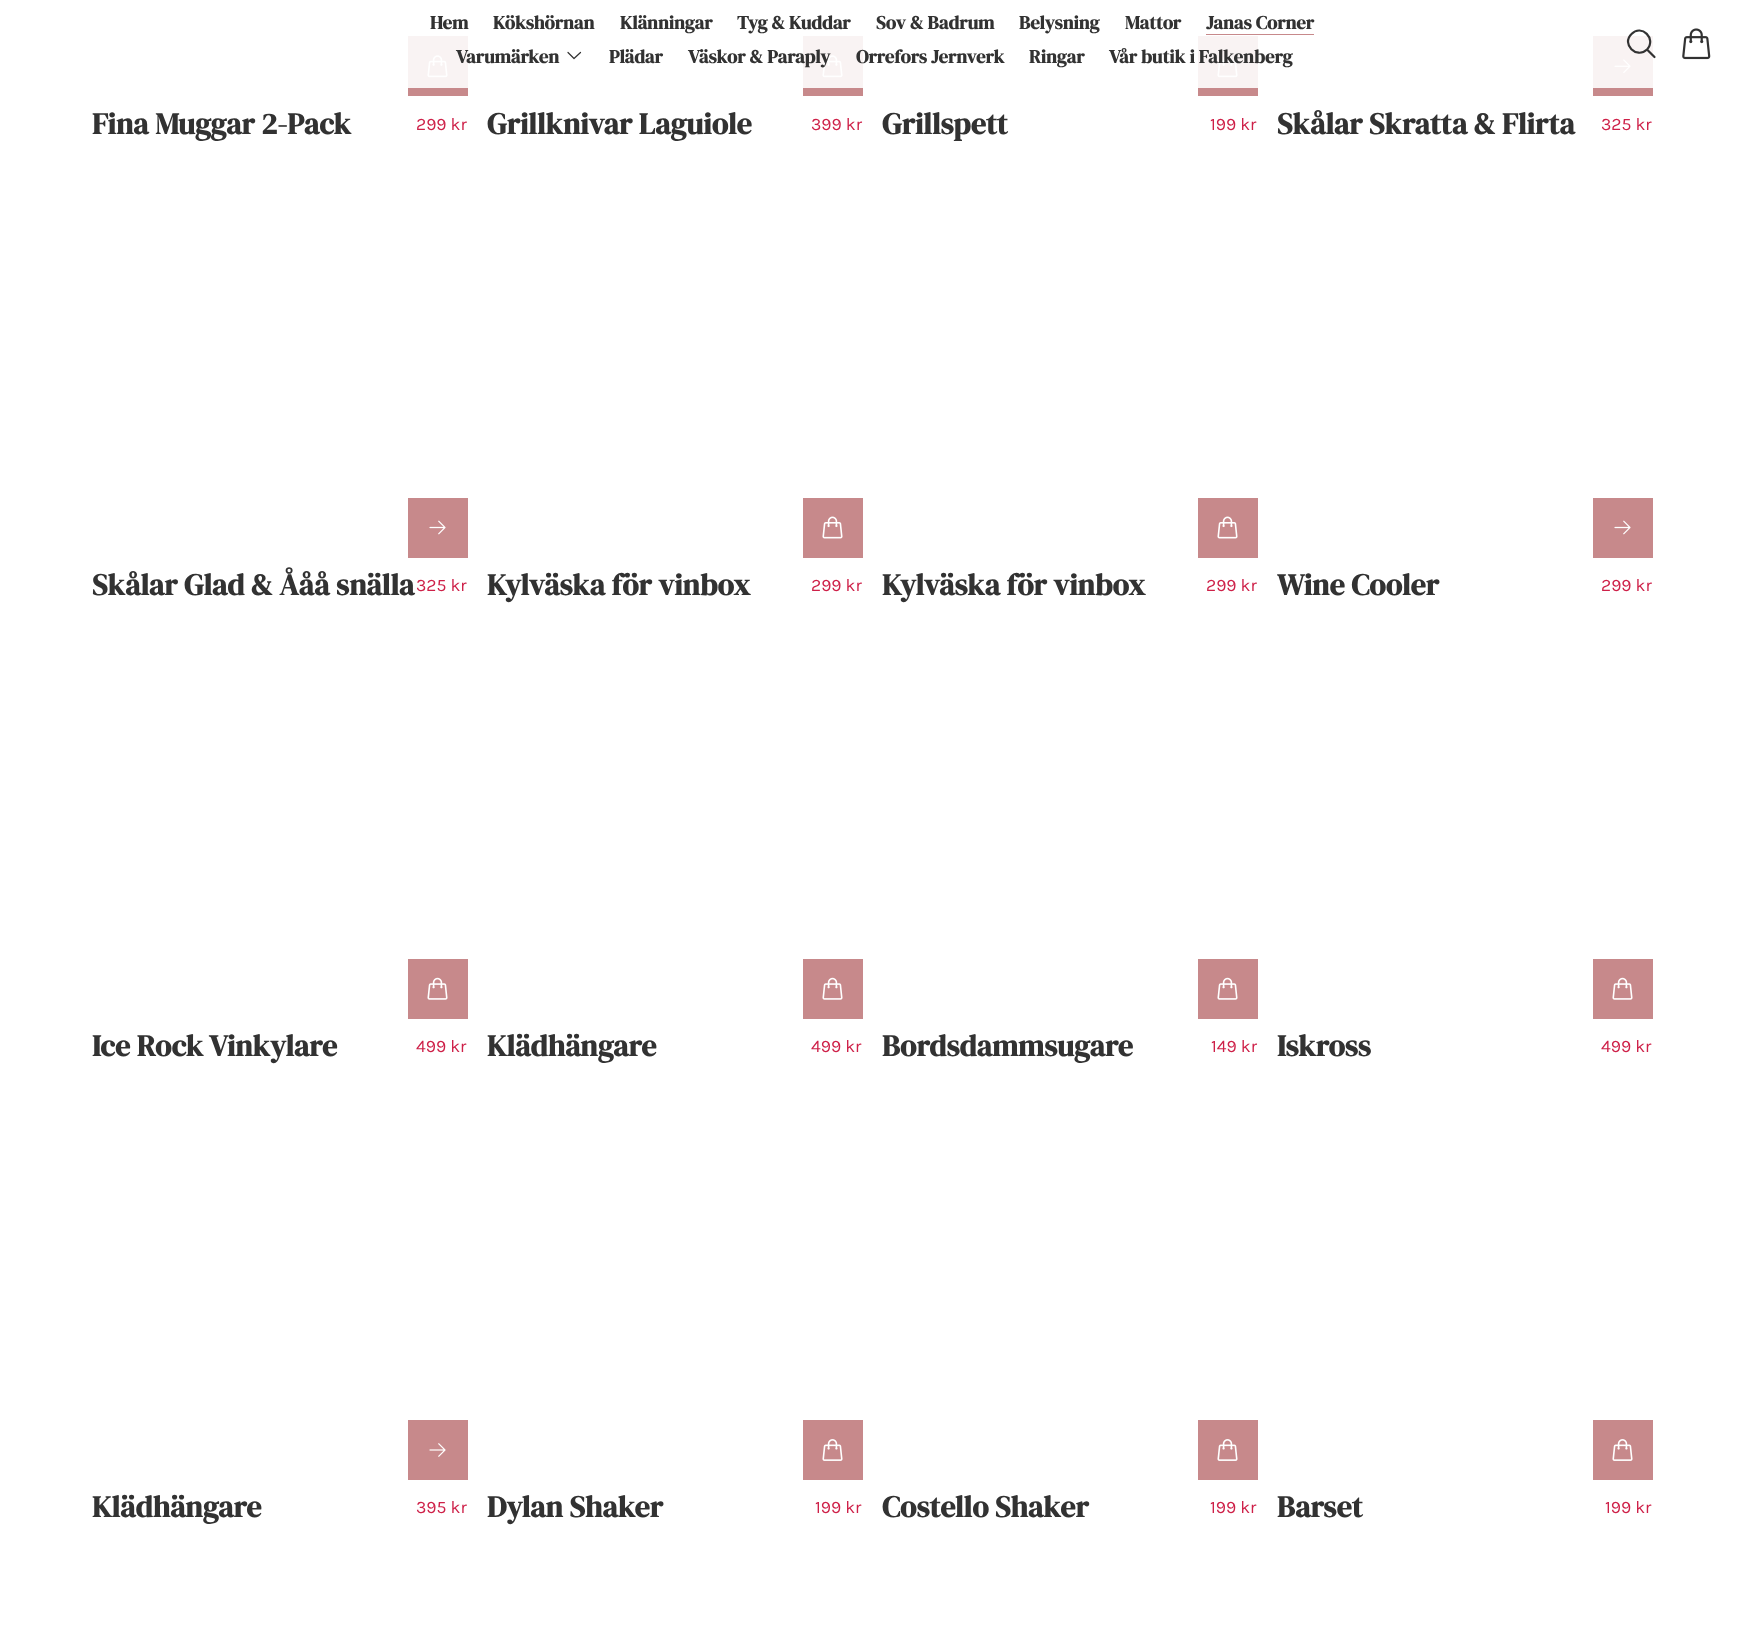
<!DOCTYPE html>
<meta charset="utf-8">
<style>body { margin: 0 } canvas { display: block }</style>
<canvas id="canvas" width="1743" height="1652"></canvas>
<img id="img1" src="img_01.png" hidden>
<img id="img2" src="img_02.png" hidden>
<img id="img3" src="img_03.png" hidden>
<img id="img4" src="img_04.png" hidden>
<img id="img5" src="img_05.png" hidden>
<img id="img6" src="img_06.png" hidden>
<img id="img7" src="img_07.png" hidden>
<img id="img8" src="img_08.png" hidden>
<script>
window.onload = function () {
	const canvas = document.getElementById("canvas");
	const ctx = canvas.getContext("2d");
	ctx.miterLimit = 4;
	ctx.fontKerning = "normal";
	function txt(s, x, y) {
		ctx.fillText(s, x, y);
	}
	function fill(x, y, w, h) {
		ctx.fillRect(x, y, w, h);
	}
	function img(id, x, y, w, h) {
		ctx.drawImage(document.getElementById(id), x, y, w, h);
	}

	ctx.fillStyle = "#FFFFFF";
	fill(0, 0, 1743, 1652);
	ctx.fillStyle = "#C7898B";
	fill(1206, 34, 108, 1);
	ctx.beginPath();
	ctx.moveTo(580.5, 52.5);
	ctx.lineTo(574, 58.5);
	ctx.lineTo(568, 52.5);
	ctx.strokeStyle = "#323232";
	ctx.lineWidth = 1.2;
	ctx.lineCap = "round";
	ctx.lineJoin = "round";
	ctx.stroke();
	ctx.fillStyle = "#F9F3F3";
	fill(1593, 36, 60, 52);
	ctx.beginPath();
	ctx.moveTo(1654.5, 57);
	ctx.lineTo(1647, 49.5);
	ctx.moveTo(1647, 49.5);
	ctx.bezierCurveTo(1657, 39, 1641.5, 23.5, 1631.5, 34);
	ctx.bezierCurveTo(1621, 44, 1636.5, 59.5, 1647, 49.5);
	ctx.closePath();
	ctx.lineWidth = 2.2;
	ctx.stroke();
	img("img1", 1682, 28, 29, 32);
	ctx.fillStyle = "#C7898B";
	fill(408, 88, 60, 8);
	ctx.fillStyle = "#F9F3F3";
	fill(408, 36, 60, 52);
	img("img2", 427, 55, 21, 23);
	ctx.fillStyle = "#C7898B";
	fill(803, 88, 60, 8);
	ctx.fillStyle = "#F9F3F3";
	fill(803, 36, 60, 52);
	img("img2", 822, 55, 21, 23);
	ctx.fillStyle = "#C7898B";
	fill(1198, 88, 60, 8);
	ctx.fillStyle = "#F9F3F3";
	fill(1198, 36, 60, 52);
	img("img2", 1217, 55, 21, 23);
	ctx.fillStyle = "#C7898B";
	fill(1593, 88, 60, 8);
	img("img3", 1614, 59, 17, 15);
	fill(408, 498, 60, 60);
	img("img4", 429, 520, 17, 15);
	fill(803, 498, 60, 60);
	img("img5", 822, 516, 21, 23);
	fill(1198, 498, 60, 60);
	img("img5", 1217, 516, 21, 23);
	fill(1593, 498, 60, 60);
	img("img4", 1614, 520, 17, 15);
	fill(408, 959, 60, 60);
	img("img6", 427, 977, 21, 23);
	fill(803, 959, 60, 60);
	img("img6", 822, 977, 21, 23);
	fill(1198, 959, 60, 60);
	img("img6", 1217, 977, 21, 23);
	fill(1593, 959, 60, 60);
	img("img6", 1612, 977, 21, 23);
	fill(408, 1420, 60, 60);
	img("img7", 429, 1443, 17, 14);
	fill(803, 1420, 60, 60);
	img("img8", 822, 1439, 21, 22);
	fill(1198, 1420, 60, 60);
	img("img8", 1217, 1439, 21, 22);
	fill(1593, 1420, 60, 60);
	img("img8", 1612, 1439, 21, 22);
	ctx.font = "bold 18.75px DM Serif Display";
	ctx.fillStyle = "#323232";
	txt("Hem", 430, 29);
	txt("Kökshörnan", 493, 29);
	txt("Klänningar", 620, 29);
	txt("Tyg & Kuddar", 737, 29);
	txt("Sov & Badrum", 876, 29);
	txt("Belysning", 1019, 29);
	txt("Mattor", 1125, 29);
	txt("Janas Corner", 1206, 29);
	txt("Varumärken", 456, 63);
	txt("Plädar", 609, 63);
	txt("Väskor & Paraply", 688, 63);
	txt("Orrefors Jernverk", 856, 63);
	txt("Ringar", 1029, 63);
	txt("Vår butik i Falkenberg", 1109, 63);
	ctx.font = "bold 30px DM Serif Display";
	txt("Fina Muggar 2-Pack", 92, 134);
	ctx.font = "17.5px Karla";
	ctx.fillStyle = "#CE2048";
	txt("299 kr", 416, 130);
	ctx.font = "bold 30px DM Serif Display";
	ctx.fillStyle = "#323232";
	txt("Grillknivar Laguiole", 487, 134);
	ctx.font = "17.5px Karla";
	ctx.fillStyle = "#CE2048";
	txt("399 kr", 811, 130);
	ctx.font = "bold 30px DM Serif Display";
	ctx.fillStyle = "#323232";
	txt("Grillspett", 882, 134);
	ctx.font = "17.5px Karla";
	ctx.fillStyle = "#CE2048";
	txt("199 kr", 1210, 130);
	ctx.font = "bold 30px DM Serif Display";
	ctx.fillStyle = "#323232";
	txt("Skålar Skratta & Flirta", 1277, 134);
	ctx.font = "17.5px Karla";
	ctx.fillStyle = "#CE2048";
	txt("325 kr", 1601, 130);
	ctx.font = "bold 30px DM Serif Display";
	ctx.fillStyle = "#323232";
	txt("Skålar Glad & Ååå snälla", 92, 595);
	ctx.font = "17.5px Karla";
	ctx.fillStyle = "#CE2048";
	txt("325 kr", 416, 591);
	ctx.font = "bold 30px DM Serif Display";
	ctx.fillStyle = "#323232";
	txt("Kylväska för vinbox", 487, 595);
	ctx.font = "17.5px Karla";
	ctx.fillStyle = "#CE2048";
	txt("299 kr", 811, 591);
	ctx.font = "bold 30px DM Serif Display";
	ctx.fillStyle = "#323232";
	txt("Kylväska för vinbox", 882, 595);
	ctx.font = "17.5px Karla";
	ctx.fillStyle = "#CE2048";
	txt("299 kr", 1206, 591);
	ctx.font = "bold 30px DM Serif Display";
	ctx.fillStyle = "#323232";
	txt("Wine Cooler", 1277, 595);
	ctx.font = "17.5px Karla";
	ctx.fillStyle = "#CE2048";
	txt("299 kr", 1601, 591);
	ctx.font = "bold 30px DM Serif Display";
	ctx.fillStyle = "#323232";
	txt("Ice Rock Vinkylare", 92, 1056);
	ctx.font = "17.5px Karla";
	ctx.fillStyle = "#CE2048";
	txt("499 kr", 416, 1052);
	ctx.font = "bold 30px DM Serif Display";
	ctx.fillStyle = "#323232";
	txt("Klädhängare", 487, 1056);
	ctx.font = "17.5px Karla";
	ctx.fillStyle = "#CE2048";
	txt("499 kr", 811, 1052);
	ctx.font = "bold 30px DM Serif Display";
	ctx.fillStyle = "#323232";
	txt("Bordsdammsugare", 882, 1056);
	ctx.font = "17.5px Karla";
	ctx.fillStyle = "#CE2048";
	txt("149 kr", 1211, 1052);
	ctx.font = "bold 30px DM Serif Display";
	ctx.fillStyle = "#323232";
	txt("Iskross", 1277, 1056);
	ctx.font = "17.5px Karla";
	ctx.fillStyle = "#CE2048";
	txt("499 kr", 1601, 1052);
	ctx.font = "bold 30px DM Serif Display";
	ctx.fillStyle = "#323232";
	txt("Klädhängare", 92, 1517);
	ctx.font = "17.5px Karla";
	ctx.fillStyle = "#CE2048";
	txt("395 kr", 416, 1513);
	ctx.font = "bold 30px DM Serif Display";
	ctx.fillStyle = "#323232";
	txt("Dylan Shaker", 487, 1517);
	ctx.font = "17.5px Karla";
	ctx.fillStyle = "#CE2048";
	txt("199 kr", 815, 1513);
	ctx.font = "bold 30px DM Serif Display";
	ctx.fillStyle = "#323232";
	txt("Costello Shaker", 882, 1517);
	ctx.font = "17.5px Karla";
	ctx.fillStyle = "#CE2048";
	txt("199 kr", 1210, 1513);
	ctx.font = "bold 30px DM Serif Display";
	ctx.fillStyle = "#323232";
	txt("Barset", 1277, 1517);
	ctx.font = "17.5px Karla";
	ctx.fillStyle = "#CE2048";
	txt("199 kr", 1605, 1513);
};
</script>
